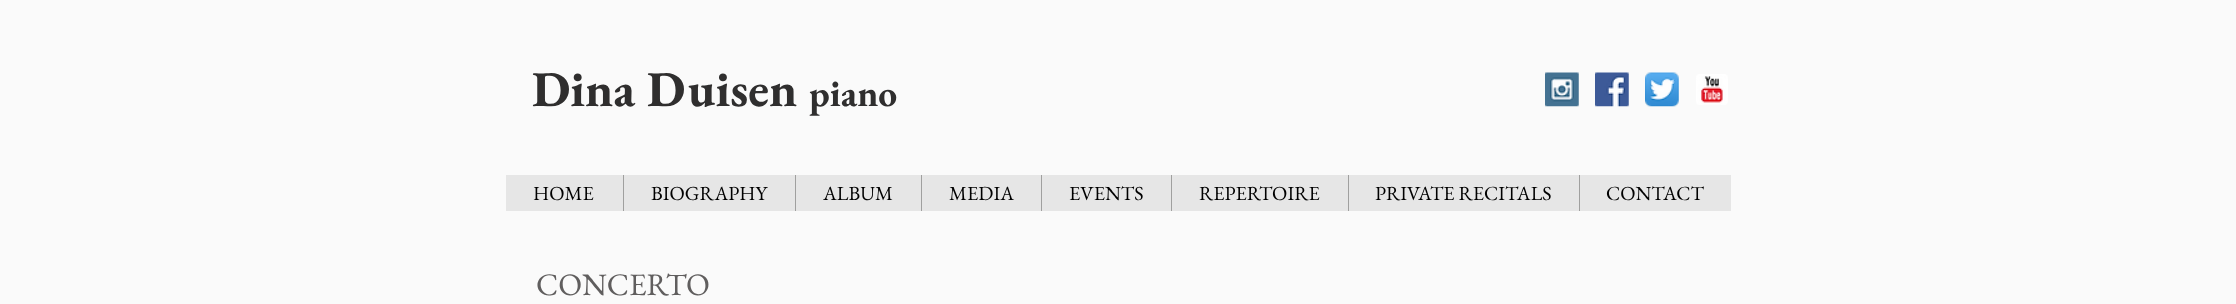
<!DOCTYPE html>
<meta charset="utf-8">
<style>body { margin: 0 } canvas { display: block }</style>
<canvas id="canvas" width="2236" height="304"></canvas>
<img id="img1" src="img_01.png" hidden>
<img id="img2" src="img_02.png" hidden>
<img id="img3" src="img_03.png" hidden>
<img id="img4" src="img_04.png" hidden>
<script>
window.onload = function () {
	const canvas = document.getElementById("canvas");
	const ctx = canvas.getContext("2d");
	ctx.miterLimit = 4;
	ctx.fontKerning = "normal";
	function txt(s, x, y) {
		ctx.fillText(s, x, y);
	}
	function fill(x, y, w, h) {
		ctx.fillRect(x, y, w, h);
	}
	function img(id, x, y, w, h) {
		ctx.drawImage(document.getElementById(id), x, y, w, h);
	}

	ctx.fillStyle = "#FAFAFA";
	fill(0, 0, 2236, 304);
	img("img1", 1545, 72, 34, 35);
	img("img2", 1595, 72, 34, 35);
	img("img3", 1645, 72, 34, 35);
	img("img4", 1696, 74, 32, 31);
	ctx.fillStyle = "#E6E6E6";
	fill(506, 175, 1225, 36);
	ctx.fillStyle = "#A0A09F";
	fill(623, 175, 1, 36);
	fill(795, 175, 1, 36);
	fill(921, 175, 1, 36);
	fill(1041, 175, 1, 36);
	fill(1171, 175, 1, 36);
	fill(1348, 175, 1, 36);
	fill(1579, 175, 1, 36);
	ctx.font = "bold 50px EB Garamond";
	ctx.fillStyle = "#2F2E2E";
	txt("Dina Duisen", 532, 106);
	ctx.font = "bold 37.5px EB Garamond";
	txt("piano", 809, 106);
	ctx.font = "20px EB Garamond";
	ctx.fillStyle = "#000000";
	txt("HOME", 533, 200);
	txt("BIOGRAPHY", 651, 200);
	txt("ALBUM", 823, 200);
	txt("MEDIA", 949, 200);
	txt("EVENTS", 1069, 200);
	txt("REPERTOIRE", 1199, 200);
	txt("PRIVATE RECITALS", 1375, 200);
	txt("CONTACT", 1606, 200);
	ctx.font = "31.25px EB Garamond";
	ctx.fillStyle = "#605E5E";
	txt("CONCERTO", 536, 295);
};
</script>
